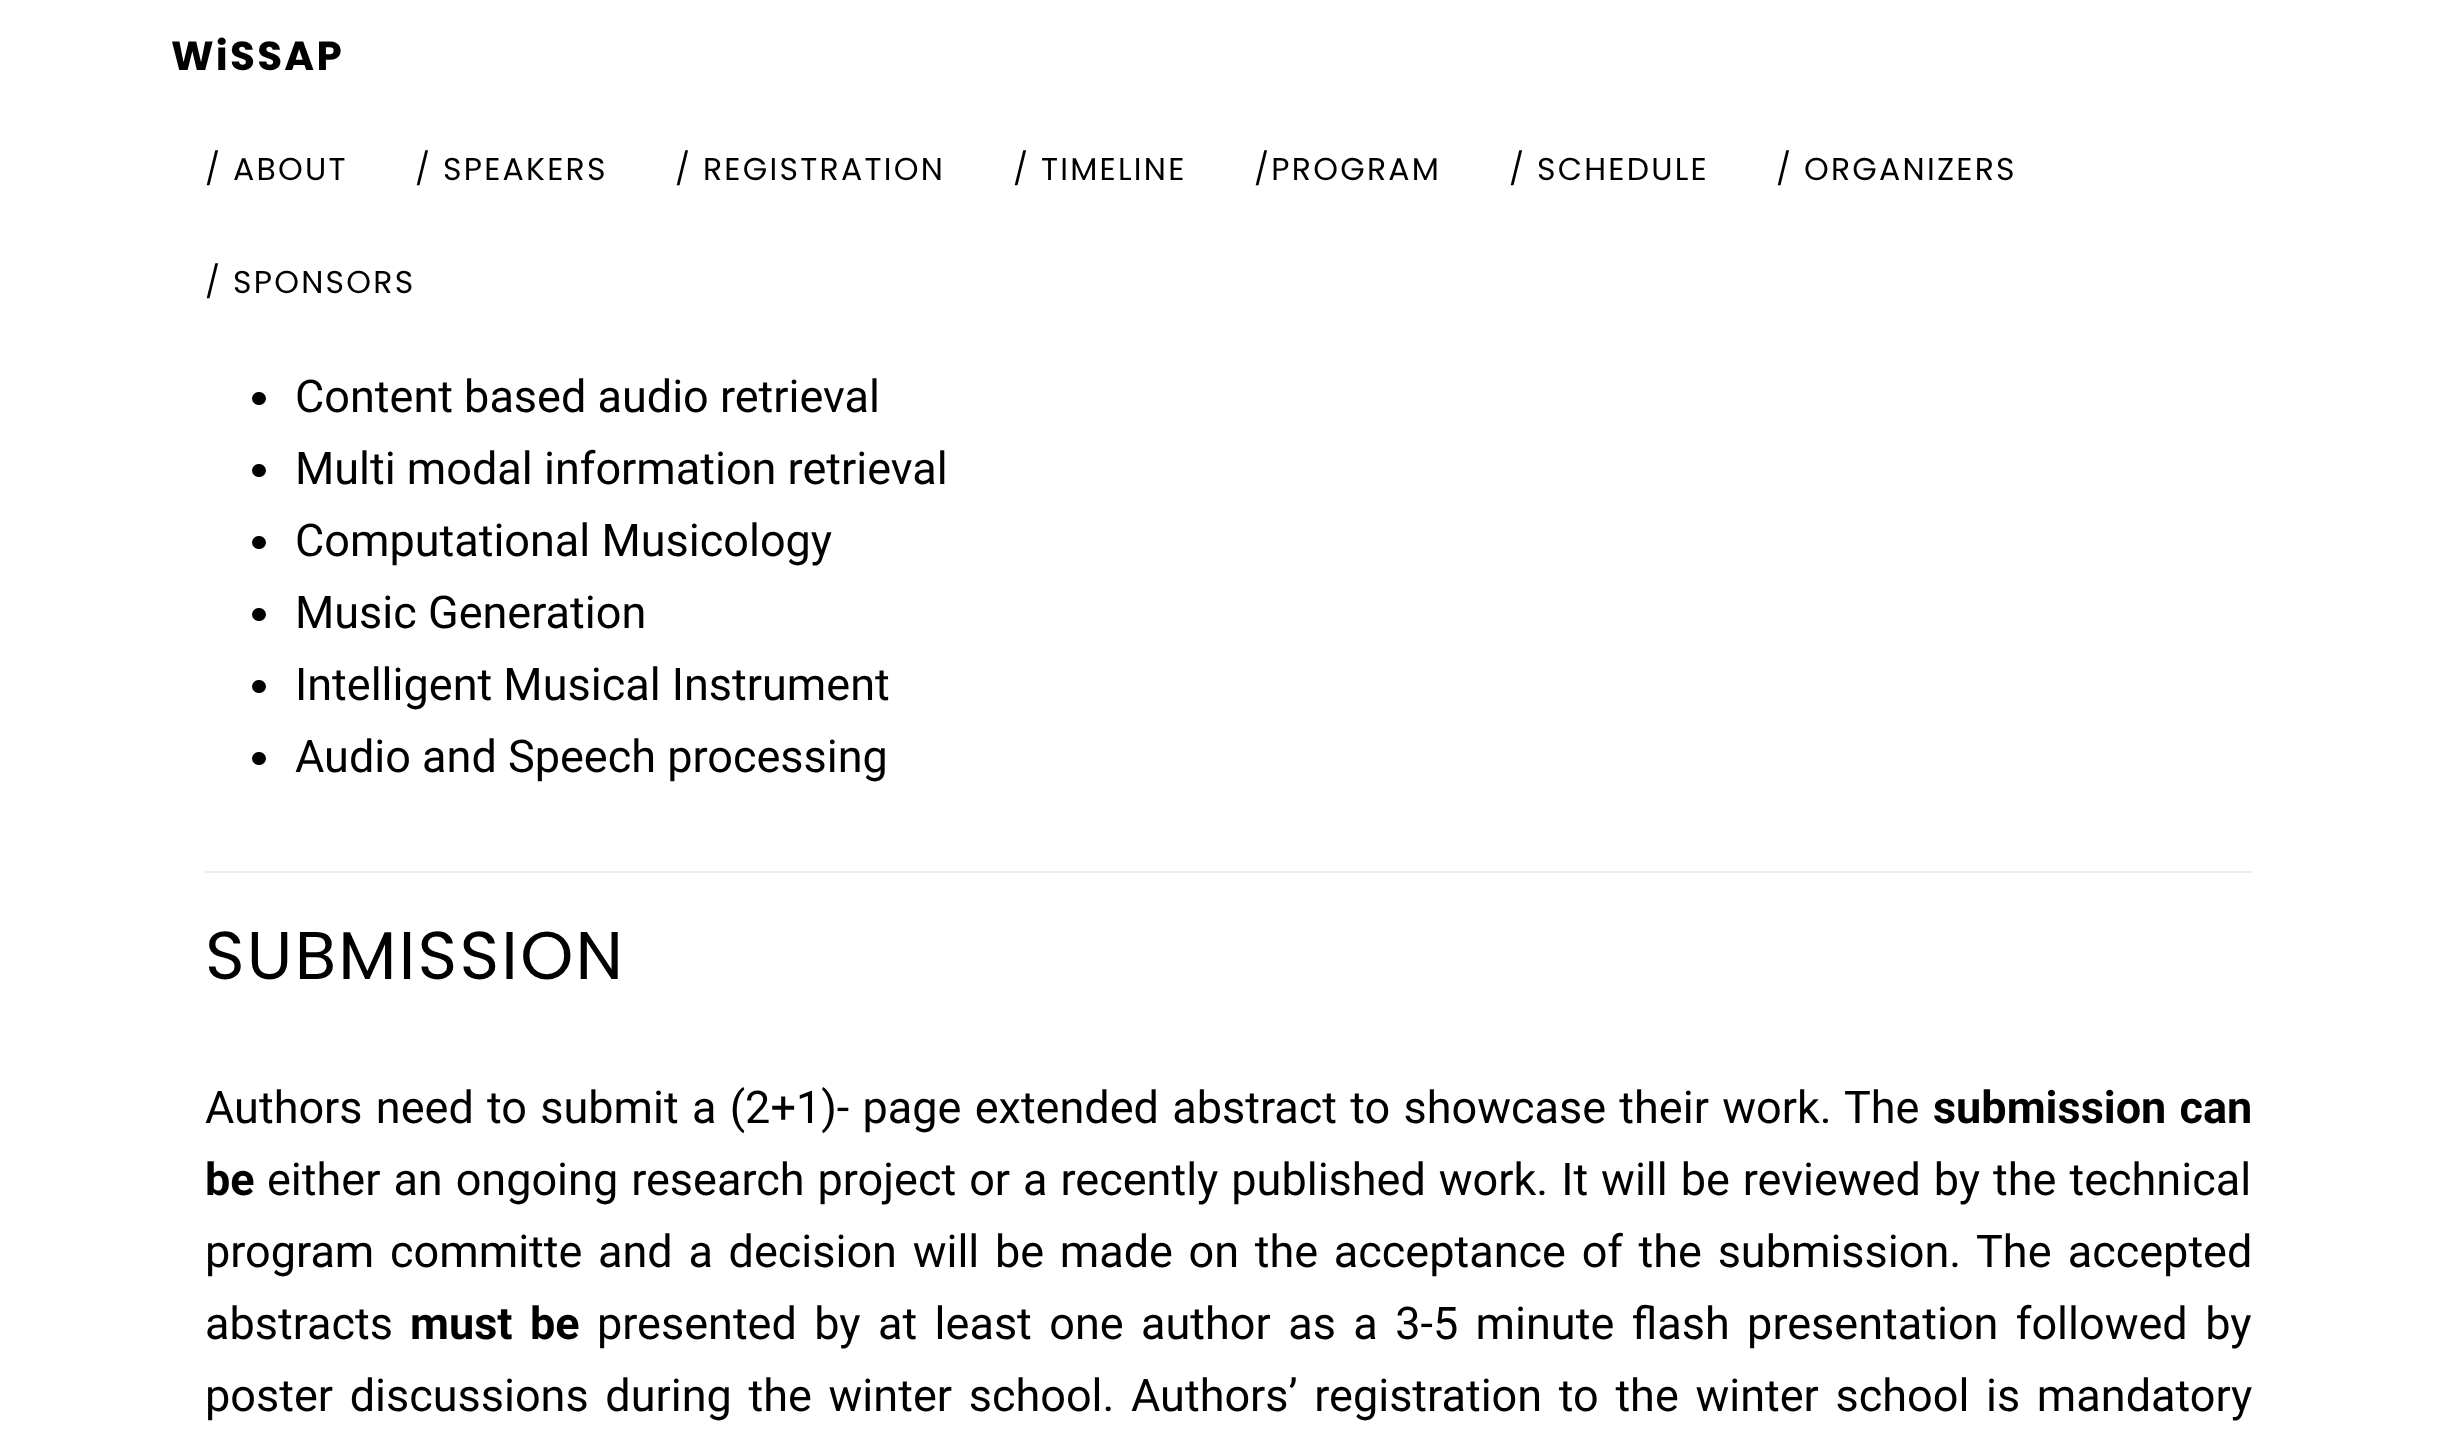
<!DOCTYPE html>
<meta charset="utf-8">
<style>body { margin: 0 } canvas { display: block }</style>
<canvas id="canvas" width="2457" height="1442"></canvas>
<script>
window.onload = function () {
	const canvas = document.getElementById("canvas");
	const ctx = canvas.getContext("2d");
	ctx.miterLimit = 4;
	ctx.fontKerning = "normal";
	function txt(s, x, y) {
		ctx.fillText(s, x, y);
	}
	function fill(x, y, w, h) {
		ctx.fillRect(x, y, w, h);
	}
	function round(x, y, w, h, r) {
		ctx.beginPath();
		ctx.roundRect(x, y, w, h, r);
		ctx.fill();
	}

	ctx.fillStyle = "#FFFFFF";
	fill(0, 0, 2457, 1442);
	ctx.fillStyle = "#000000";
	round(252, 392, 14, 13, 6.5);
	round(252, 464, 14, 13, 6.5);
	round(252, 536, 14, 13, 6.5);
	round(252, 608, 14, 13, 6.5);
	round(252, 680, 14, 13, 6.5);
	round(252, 752, 14, 13, 6.5);
	ctx.fillStyle = "#EEEEEE";
	fill(205, 871, 2047, 2);
	ctx.letterSpacing = "2.25px";
	ctx.font = "bold 40.5px Poppins";
	ctx.fillStyle = "#000000";
	txt("WiSSAP", 171, 70);
	ctx.font = "31.5px Poppins";
	txt("/ ABOUT", 205, 180);
	txt("/ SPEAKERS", 415, 180);
	txt("/ REGISTRATION", 675, 180);
	txt("/ TIMELINE", 1013, 180);
	txt("/PROGRAM", 1254, 180);
	txt("/ SCHEDULE", 1509, 180);
	txt("/ ORGANIZERS", 1776, 180);
	txt("/ SPONSORS", 205, 293);
	ctx.letterSpacing = "0px";
	ctx.font = "45px Roboto";
	txt("Content based audio retrieval", 295, 412);
	txt("Multi modal information retrieval", 295, 484);
	txt("Computational Musicology", 295, 556);
	txt("Music Generation", 295, 628);
	txt("Intelligent Musical Instrument", 295, 700);
	txt("Audio and Speech processing", 295, 772);
	ctx.letterSpacing = "2.25px";
	ctx.font = "67.5px Poppins";
	txt("SUBMISSION", 205, 979);
	ctx.letterSpacing = "0px";
	ctx.wordSpacing = "2.1px";
	ctx.font = "45px Roboto";
	txt("Authors need to submit a (2+1)- page extended abstract to showcase their work. The", 205, 1123);
	ctx.font = "bold 45px Roboto";
	txt("submission can", 1933, 1123);
	ctx.wordSpacing = "0px";
	txt("be", 205, 1195);
	ctx.wordSpacing = "1.8px";
	ctx.font = "45px Roboto";
	txt("either an ongoing research project or a recently published work. It will be reviewed by the technical", 267, 1195);
	ctx.wordSpacing = "4.5px";
	txt("program committe and a decision will be made on the acceptance of the submission.", 205, 1267);
	ctx.wordSpacing = "5px";
	txt("The accepted", 1976, 1267);
	ctx.wordSpacing = "0px";
	txt("abstracts", 205, 1339);
	ctx.wordSpacing = "6.25px";
	ctx.font = "bold 45px Roboto";
	txt("must be", 410, 1339);
	ctx.font = "45px Roboto";
	txt("presented by at least one author as a 3-5 minute flash presentation followed by", 597, 1339);
	ctx.wordSpacing = "5.5px";
	txt("poster discussions during the winter school.", 205, 1411);
	txt("Authors’ registration to the winter school is mandatory", 1131, 1411);
};
</script>
